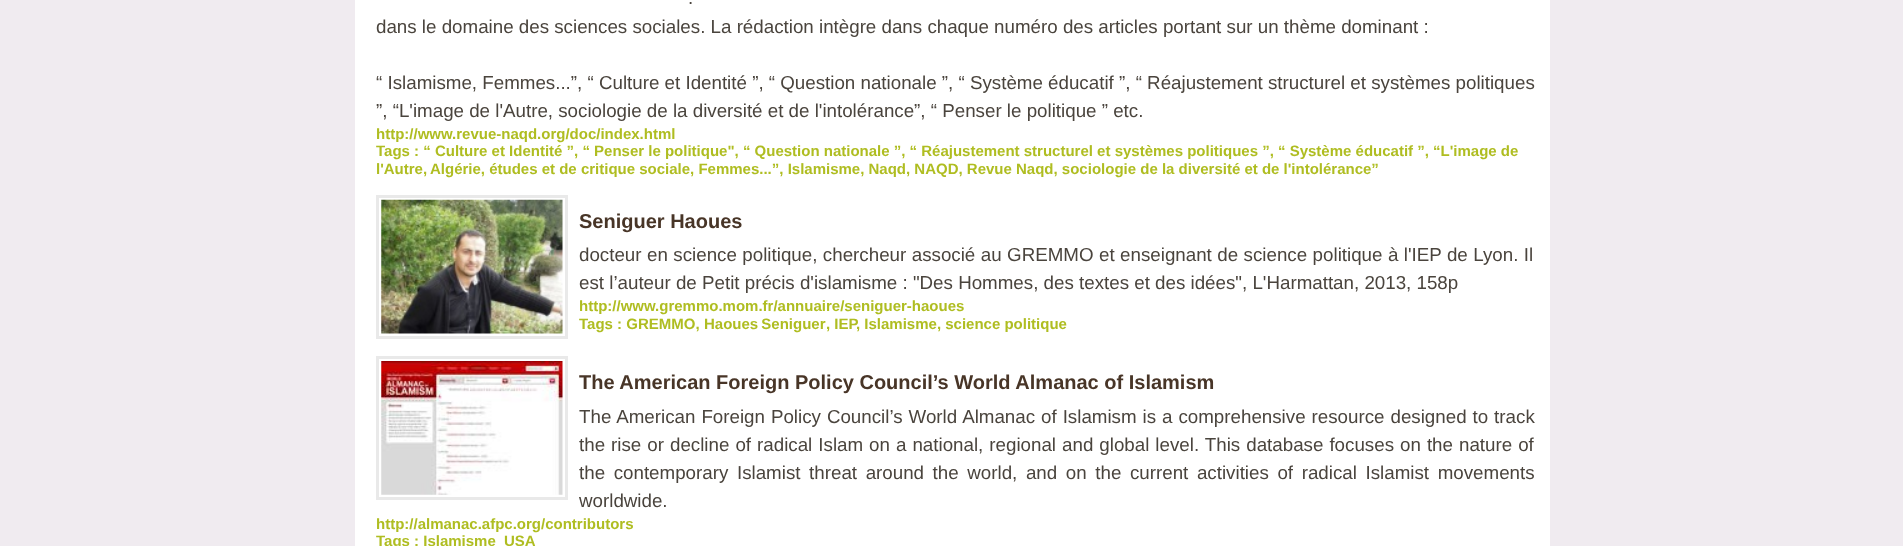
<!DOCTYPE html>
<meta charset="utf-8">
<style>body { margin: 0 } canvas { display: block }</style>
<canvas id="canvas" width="1903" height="546"></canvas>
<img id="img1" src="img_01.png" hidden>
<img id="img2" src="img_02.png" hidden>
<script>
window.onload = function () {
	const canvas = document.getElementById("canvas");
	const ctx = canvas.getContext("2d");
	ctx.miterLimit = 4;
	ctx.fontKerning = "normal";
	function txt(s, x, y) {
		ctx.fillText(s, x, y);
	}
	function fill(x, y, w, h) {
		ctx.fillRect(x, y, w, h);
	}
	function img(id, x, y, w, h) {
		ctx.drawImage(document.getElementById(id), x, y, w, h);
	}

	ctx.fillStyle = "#F0EBF0";
	fill(0, 0, 1903, 546);
	ctx.fillStyle = "#FFFFFF";
	fill(355, 0, 1195, 546);
	ctx.strokeStyle = "#E9E9E9";
	ctx.lineWidth = 3;
	ctx.strokeRect(377.5, 196.5, 189, 141);
	img("img1", 381, 199, 182, 135);
	ctx.strokeRect(377.5, 357.5, 189, 141);
	img("img2", 381, 361, 182, 134);
	ctx.wordSpacing = "1px";
	ctx.font = "18.75px Liberation Sans";
	ctx.fillStyle = "#4A443D";
	txt(".", 688, 4);
	ctx.wordSpacing = "0px";
	txt("dans le domaine des sciences sociales. La rédaction intègre dans chaque numéro des articles portant sur un thème dominant :", 376, 33);
	txt("“ Islamisme, Femmes...”, “ Culture et Identité ”, “ Question nationale ”, “ Système éducatif ”, “ Réajustement structurel et systèmes politiques", 376, 89);
	txt("”, “L'image de l'Autre, sociologie de la diversité et de l'intolérance”, “ Penser le politique ” etc.", 376, 117);
	ctx.font = "bold 15px Liberation Sans";
	ctx.fillStyle = "#AFBD21";
	txt("http://www.revue-naqd.org/doc/index.html", 376, 139);
	txt("Tags : “ Culture et Identité ”, “ Penser le politique\", “ Question nationale ”, “ Réajustement structurel et systèmes politiques ”, “ Système éducatif ”, “L'image de", 376, 156);
	txt("l'Autre,", 376, 174);
	txt("Algérie, études et de critique sociale, Femmes...”, Islamisme, Naqd, NAQD, Revue Naqd, sociologie de la diversité et de l'intolérance”", 430, 174);
	ctx.font = "bold 20px Liberation Sans";
	ctx.fillStyle = "#483527";
	txt("Seniguer Haoues", 579, 228);
	ctx.wordSpacing = "0.25px";
	ctx.font = "18.75px Liberation Sans";
	ctx.fillStyle = "#4A443D";
	txt("docteur en science politique, chercheur associé au GREMMO et enseignant de science politique à l'IEP de Lyon. Il", 579, 261);
	ctx.wordSpacing = "0px";
	txt("est l’auteur de Petit précis d'islamisme : \"Des Hommes, des textes et des idées\", L'Harmattan, 2013, 158p", 579, 289);
	ctx.font = "bold 15px Liberation Sans";
	ctx.fillStyle = "#AFBD21";
	txt("http://www.gremmo.mom.fr/annuaire/seniguer-haoues", 579, 311);
	txt("Tags : GREMMO,", 579, 329);
	ctx.wordSpacing = "-1px";
	txt("Haoues Seniguer", 704, 329);
	ctx.wordSpacing = "0px";
	txt(", IEP", 826, 329);
	txt(", Islamisme, science politique", 856, 329);
	ctx.font = "bold 20px Liberation Sans";
	ctx.fillStyle = "#483527";
	txt("The American Foreign Policy Council’s World Almanac of Islamism", 579, 389);
	ctx.wordSpacing = "0.75px";
	ctx.font = "18.75px Liberation Sans";
	ctx.fillStyle = "#4A443D";
	txt("The American Foreign Policy Council’s World Almanac of Islamism is a comprehensive resource designed to track", 579, 423);
	ctx.wordSpacing = "0.8px";
	txt("the rise or decline of radical Islam on a national, regional and global level. This database focuses on the nature of", 579, 451);
	ctx.wordSpacing = "3.4px";
	txt("the contemporary Islamist threat around the world, and on the current activities of radical Islamist movements", 579, 479);
	ctx.wordSpacing = "0px";
	txt("worldwide.", 579, 507);
	ctx.font = "bold 15px Liberation Sans";
	ctx.fillStyle = "#AFBD21";
	txt("http://almanac.afpc.org/contributors", 376, 529);
	txt("Tags : Islamisme", 376, 546);
	txt("USA", 504, 546);
};
</script>
